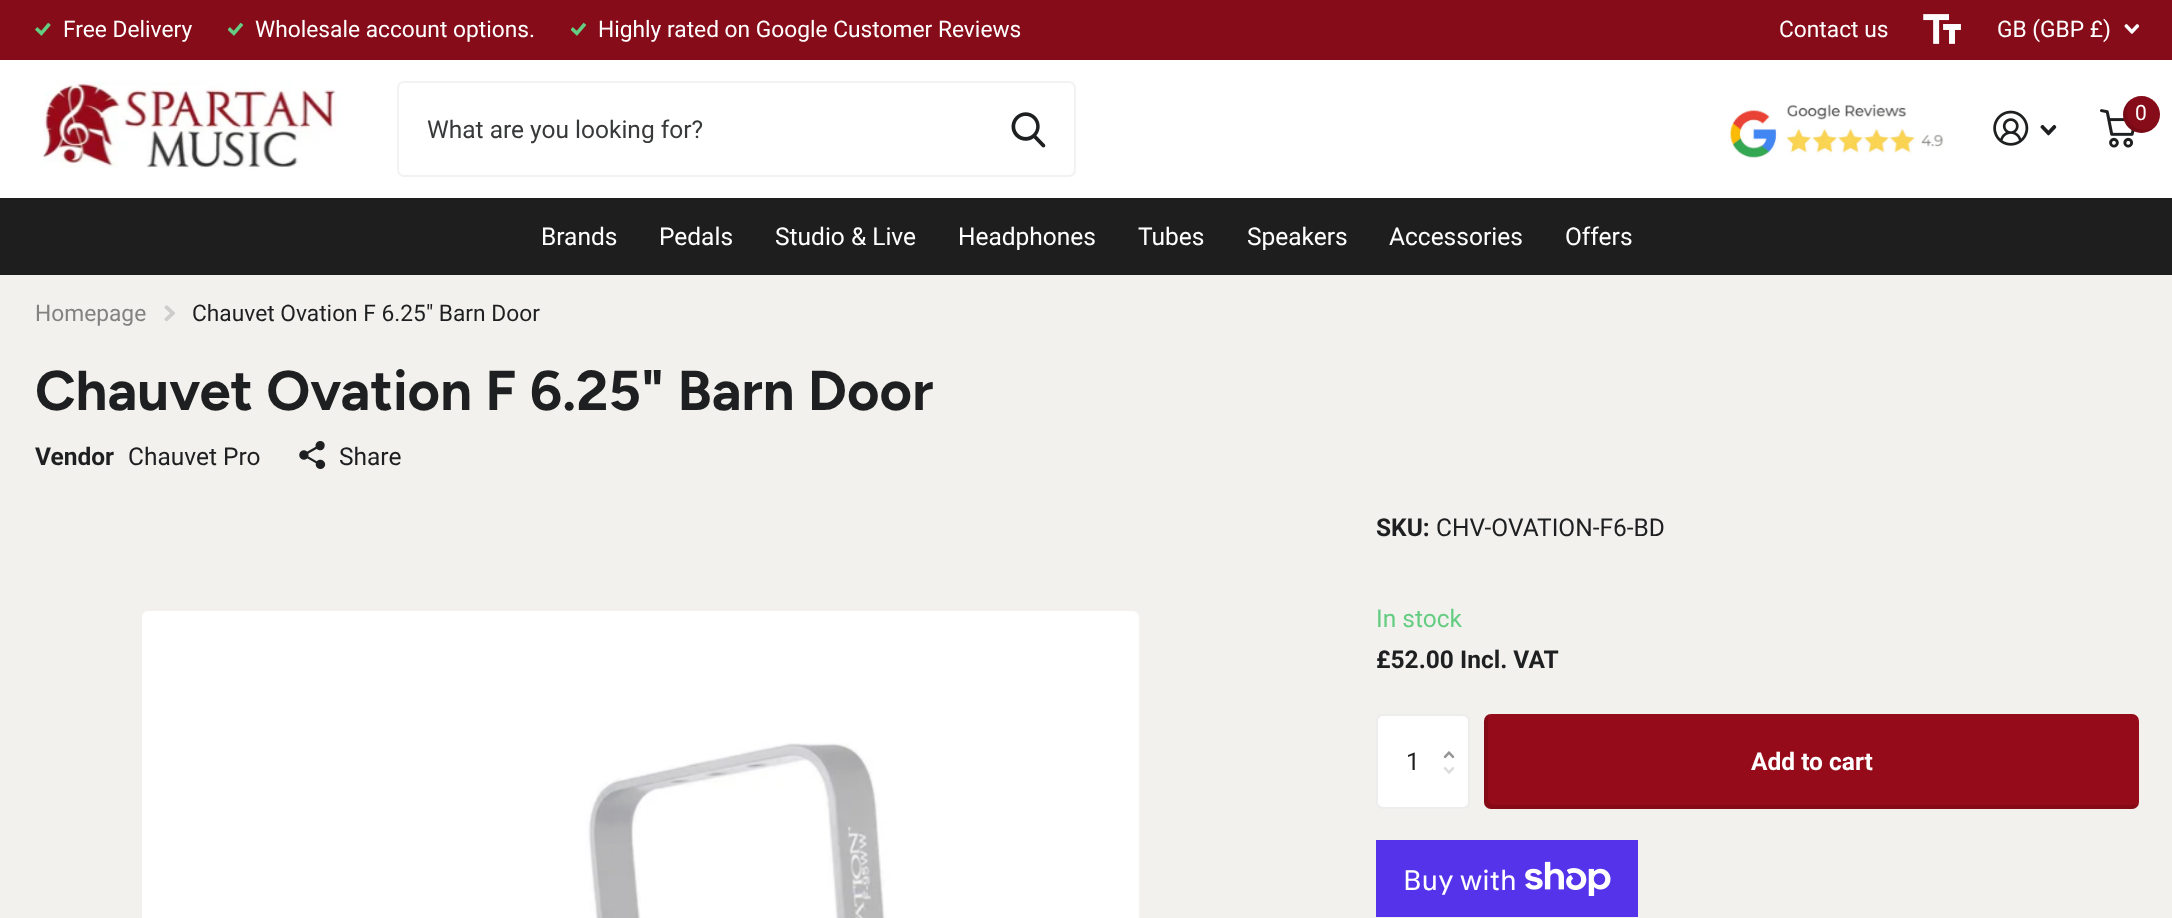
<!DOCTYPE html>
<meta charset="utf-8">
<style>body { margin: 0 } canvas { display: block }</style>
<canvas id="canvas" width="2172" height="918"></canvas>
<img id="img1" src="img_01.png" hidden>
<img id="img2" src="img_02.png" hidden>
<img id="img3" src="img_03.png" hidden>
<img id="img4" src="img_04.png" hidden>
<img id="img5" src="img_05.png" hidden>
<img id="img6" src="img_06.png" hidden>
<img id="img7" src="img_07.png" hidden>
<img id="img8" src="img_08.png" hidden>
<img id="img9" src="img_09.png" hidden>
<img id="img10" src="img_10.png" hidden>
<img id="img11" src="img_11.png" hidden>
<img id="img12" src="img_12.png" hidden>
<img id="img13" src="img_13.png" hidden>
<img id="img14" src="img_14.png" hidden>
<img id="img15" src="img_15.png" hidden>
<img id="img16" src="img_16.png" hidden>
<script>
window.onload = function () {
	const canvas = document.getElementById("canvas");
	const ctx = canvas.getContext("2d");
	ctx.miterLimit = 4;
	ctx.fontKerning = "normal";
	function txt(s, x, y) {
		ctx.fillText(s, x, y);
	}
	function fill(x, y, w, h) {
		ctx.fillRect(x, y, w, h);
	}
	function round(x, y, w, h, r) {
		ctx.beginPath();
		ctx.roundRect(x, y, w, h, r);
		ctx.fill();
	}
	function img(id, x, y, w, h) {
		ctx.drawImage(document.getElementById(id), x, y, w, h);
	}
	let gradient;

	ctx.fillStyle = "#F3F1EE";
	fill(0, 0, 2172, 918);
	gradient = ctx.createLinearGradient(1092, 122, 1082, -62);
	gradient.addColorStop(0, "#000000");
	gradient.addColorStop(0.01, "#850C18");
	ctx.fillStyle = gradient;
	fill(0, 0, 2172, 60);
	img("img1", 35, 22, 16, 14);
	img("img2", 228, 22, 16, 14);
	img("img2", 571, 22, 16, 14);
	img("img3", 1923, 14, 38, 30);
	img("img4", 2124, 24, 16, 10);
	ctx.fillStyle = "#FFFFFF";
	fill(0, 60, 2172, 138);
	img("img5", 40, 80, 301, 89);
	img("img6", 1729, 104, 215, 54);
	img("img7", 1993, 110, 36, 36);
	img("img8", 2040, 124, 17, 12);
	img("img9", 2100, 109, 35, 39);
	ctx.fillStyle = "#850C18";
	ctx.beginPath();
	ctx.arc(2141.5, 114.5, 18.5, 0, Math.PI * 2);
	ctx.fill();
	ctx.fillStyle = "rgba(0, 0, 0, 0.1)";
	ctx.beginPath();
	ctx.moveTo(2154.5, 127.5);
	ctx.bezierCurveTo(2152, 129, 2149, 130, 2145, 130);
	ctx.bezierCurveTo(2127, 130, 2122.5, 109.5, 2131, 99);
	ctx.bezierCurveTo(2121.5, 105.5, 2120, 119.5, 2128.5, 127.5);
	ctx.bezierCurveTo(2135.5, 135, 2147.5, 134.5, 2154.5, 127.5);
	ctx.closePath();
	ctx.fill();
	ctx.beginPath();
	ctx.roundRect(398, 82, 677, 94, 6);
	ctx.strokeStyle = "#F2F2F2";
	ctx.lineWidth = 2;
	ctx.stroke();
	img("img10", 1011, 112, 35, 36);
	ctx.fillStyle = "#1E1E1E";
	fill(0, 198, 2172, 77);
	img("img11", 164, 305, 11, 17);
	img("img12", 299, 441, 27, 28);
	img("img13", 142, 611, 998, 307);
	ctx.fillStyle = "#FFFFFF";
	round(1376, 714, 94, 95, 7);
	ctx.beginPath();
	ctx.roundRect(1377, 715, 92, 93, 6);
	ctx.strokeStyle = "rgba(30, 31, 32, 0.08)";
	ctx.stroke();
	img("img14", 1443, 751, 12, 8);
	img("img15", 1443, 767, 12, 7);
	ctx.fillStyle = "#960B19";
	round(1484, 714, 655, 95, 7);
	ctx.fillStyle = "rgba(0, 0, 0, 0.1)";
	ctx.beginPath();
	ctx.moveTo(1489, 714);
	ctx.bezierCurveTo(1486, 715, 1484, 718, 1484, 721);
	ctx.lineTo(1484, 802);
	ctx.bezierCurveTo(1484, 806, 1487, 809, 1491, 809);
	ctx.lineTo(2132, 809);
	ctx.bezierCurveTo(2135, 809, 2138, 807, 2139, 804);
	ctx.bezierCurveTo(2138, 805, 2136, 805, 2135, 805);
	ctx.lineTo(1494, 805);
	ctx.bezierCurveTo(1491, 805, 1488, 802, 1488, 798);
	ctx.lineTo(1488, 718);
	ctx.closePath();
	ctx.fill();
	ctx.fillStyle = "#5433EB";
	fill(1376, 840, 262, 77);
	img("img16", 1525, 861, 86, 35);
	ctx.font = "22.75px Roboto";
	ctx.fillStyle = "#FFFFFF";
	txt("Free Delivery", 63, 37);
	txt("Wholesale account options.", 255, 37);
	txt("Highly rated on Google Customer Reviews", 598, 37);
	txt("Contact us", 1779, 37);
	txt("GB (GBP £)", 1997, 37);
	ctx.font = "21px Roboto";
	txt("0", 2135, 120);
	ctx.font = "24.5px Roboto";
	ctx.fillStyle = "#37393A";
	txt("What are you looking for?", 427, 138);
	ctx.fillStyle = "#FFFFFF";
	txt("Brands", 541, 245);
	txt("Pedals", 659, 245);
	txt("Studio & Live", 775, 245);
	txt("Headphones", 958, 245);
	txt("Tubes", 1138, 245);
	txt("Speakers", 1247, 245);
	txt("Accessories", 1389, 245);
	txt("Offers", 1565, 245);
	ctx.font = "22.75px Roboto";
	ctx.fillStyle = "#828281";
	txt("Homepage", 35, 321);
	ctx.fillStyle = "#1E1F20";
	txt("Chauvet Ovation F 6.25\" Barn Door", 192, 321);
	ctx.font = "bold 56px Figtree";
	txt("Chauvet Ovation F 6.25\" Barn Door", 35, 410);
	ctx.font = "bold 24.5px Roboto";
	txt("Vendor", 35, 465);
	ctx.font = "24.5px Roboto";
	txt("Chauvet Pro", 128, 465);
	txt("Share", 339, 465);
	ctx.font = "bold 24.5px Roboto";
	txt("SKU:", 1376, 536);
	ctx.font = "24.5px Roboto";
	txt("CHV-OVATION-F6-BD", 1436, 536);
	ctx.fillStyle = "#64CD82";
	txt("In stock", 1376, 627);
	ctx.font = "bold 24.5px Roboto";
	ctx.fillStyle = "#1E1F20";
	txt("£52.00 Incl. VAT", 1376, 668);
	ctx.font = "24.5px Roboto";
	txt("1", 1406, 770);
	ctx.font = "bold 24.5px Roboto";
	ctx.fillStyle = "#FFFFFF";
	txt("Add to cart", 1751, 770);
	ctx.font = "28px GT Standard";
	txt("Buy with", 1403, 890);
};
</script>
